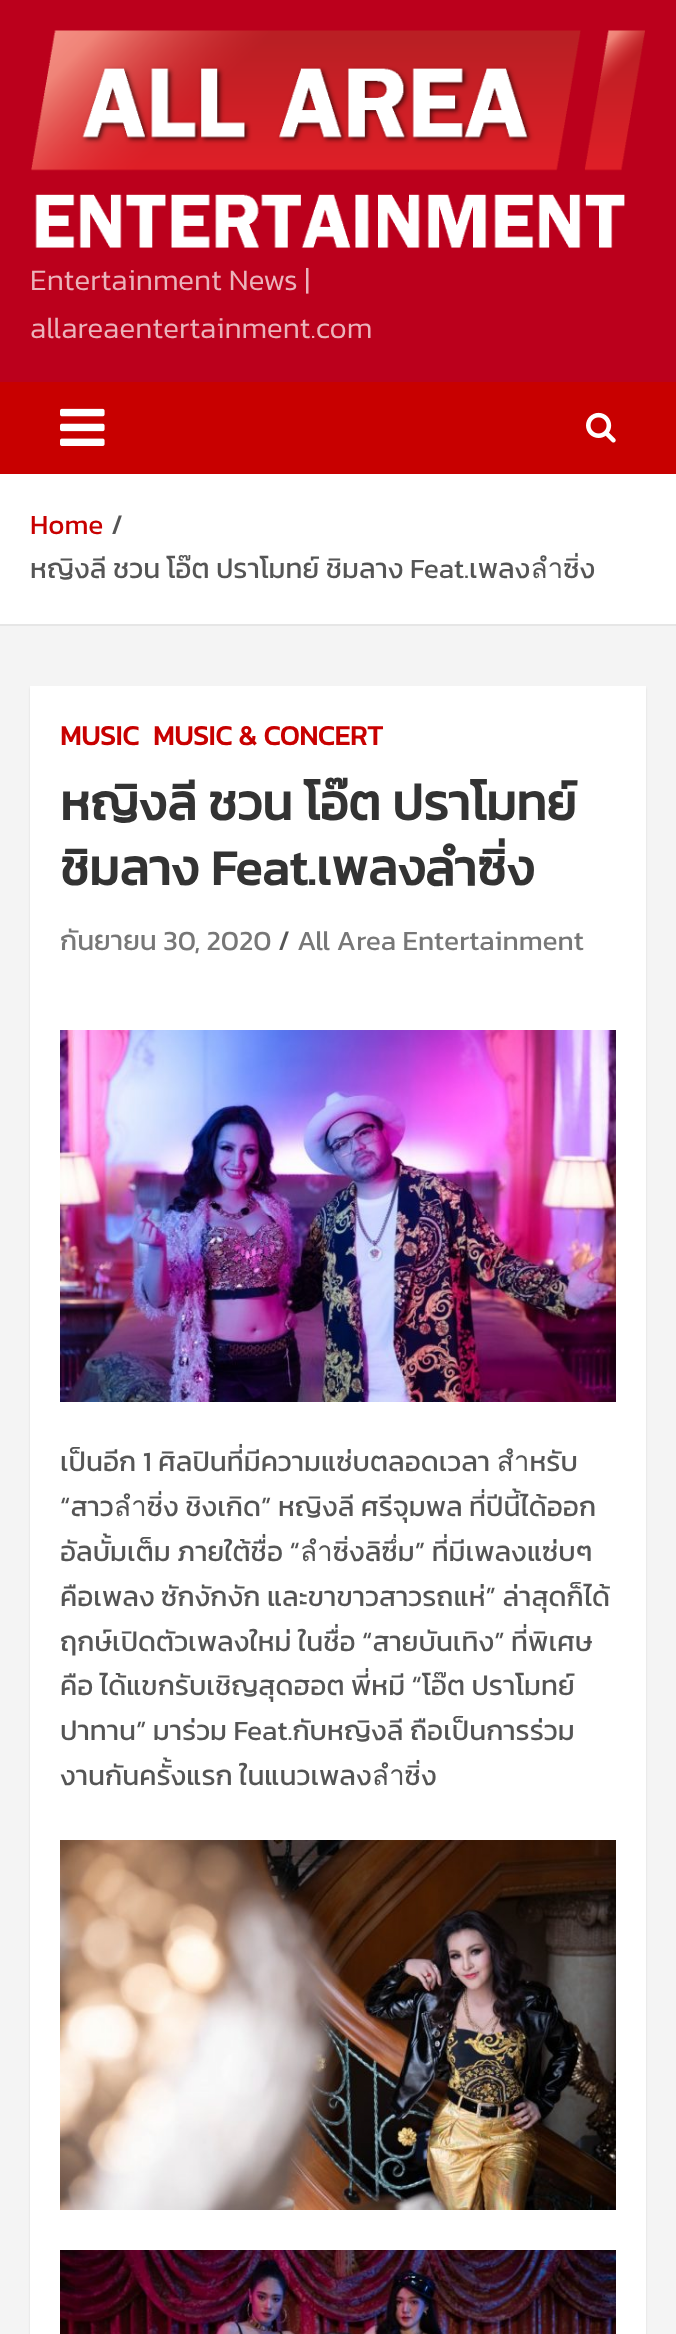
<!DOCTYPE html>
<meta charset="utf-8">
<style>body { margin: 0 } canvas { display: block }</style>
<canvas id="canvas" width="676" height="2334"></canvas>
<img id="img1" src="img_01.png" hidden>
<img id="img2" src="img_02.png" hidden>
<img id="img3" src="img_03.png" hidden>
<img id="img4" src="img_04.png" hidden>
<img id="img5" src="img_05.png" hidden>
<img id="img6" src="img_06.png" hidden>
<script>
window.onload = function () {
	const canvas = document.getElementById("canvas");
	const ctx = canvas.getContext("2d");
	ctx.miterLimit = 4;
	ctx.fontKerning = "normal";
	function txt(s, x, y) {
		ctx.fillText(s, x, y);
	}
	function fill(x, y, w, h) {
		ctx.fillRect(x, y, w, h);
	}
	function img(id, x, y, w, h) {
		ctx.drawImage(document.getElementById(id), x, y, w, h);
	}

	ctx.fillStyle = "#F4F4F4";
	fill(0, 0, 676, 2334);
	ctx.fillStyle = "#BB001C";
	fill(0, 0, 676, 382);
	img("img1", 31, 30, 614, 218);
	ctx.fillStyle = "#C80000";
	fill(0, 382, 676, 92);
	img("img2", 60, 408, 45, 38);
	img("img3", 586, 412, 30, 31);
	ctx.fillStyle = "#FFFFFF";
	fill(0, 474, 676, 150);
	ctx.fillStyle = "#E6E6E6";
	fill(0, 624, 676, 2);
	ctx.fillStyle = "rgba(0, 0, 0, 0.1)";
	ctx.filter = "blur(1px)";
	ctx.beginPath();
	ctx.rect(30, 688, 616, 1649);
	ctx.fill();
	ctx.filter = "none";
	ctx.fillStyle = "#FFFFFF";
	fill(30, 686, 616, 1648);
	img("img4", 60, 1030, 556, 372);
	img("img5", 60, 1840, 556, 370);
	img("img6", 60, 2250, 556, 84);
	ctx.font = "300 30px Kanit";
	ctx.fillStyle = "#EBB3BB";
	txt("Entertainment News |", 30, 290);
	txt("allareaentertainment.com", 30, 338);
	ctx.font = "28px Kanit";
	ctx.fillStyle = "#C80000";
	txt("Home", 30, 534);
	ctx.fillStyle = "#555555";
	txt("/", 111, 534);
	txt("หญิงลี ชวน โอ๊ต ปราโมทย์ ชิมลาง Feat.เพลงลำซิ่ง", 30, 578);
	ctx.font = "bold 28px Kanit";
	ctx.fillStyle = "#C80000";
	txt("MUSIC", 60, 745);
	txt("MUSIC & CONCERT", 153, 745);
	ctx.font = "bold 50px Kanit";
	ctx.fillStyle = "#333333";
	txt("หญิงลี ชวน โอ๊ต ปราโมทย์", 60, 820);
	txt("ชิมลาง Feat.เพลงลำซิ่ง", 60, 885);
	ctx.font = "28px Kanit";
	ctx.fillStyle = "#777777";
	txt("กันยายน 30, 2020", 60, 950);
	ctx.fillStyle = "#555555";
	txt("/", 278, 950);
	ctx.fillStyle = "#777777";
	txt("All Area Entertainment", 297, 950);
	ctx.fillStyle = "#555555";
	txt("เป็นอีก 1 ศิลปินที่มีความแซ่บตลอดเวลา สำหรับ", 60, 1471);
	txt("“สาวลำซิ่ง ชิงเกิด” หญิงลี ศรีจุมพล ที่ปีนี้ได้ออก", 60, 1516);
	txt("อัลบั้มเต็ม ภายใต้ชื่อ “ลำซิ่งลิซึ่ม” ที่มีเพลงแซ่บๆ", 60, 1561);
	txt("คือเพลง ซักงักงัก และขาขาวสาวรถแห่” ล่าสุดก็ได้", 60, 1606);
	txt("ฤกษ์เปิดตัวเพลงใหม่ ในชื่อ “สายบันเทิง” ที่พิเศษ", 60, 1651);
	txt("คือ ได้แขกรับเชิญสุดฮอต พี่หมี “โอ๊ต ปราโมทย์", 60, 1695);
	txt("ปาทาน” มาร่วม Feat.กับหญิงลี ถือเป็นการร่วม", 60, 1740);
	txt("งานกันครั้งแรก ในแนวเพลงลำซิ่ง", 60, 1785);
};
</script>
